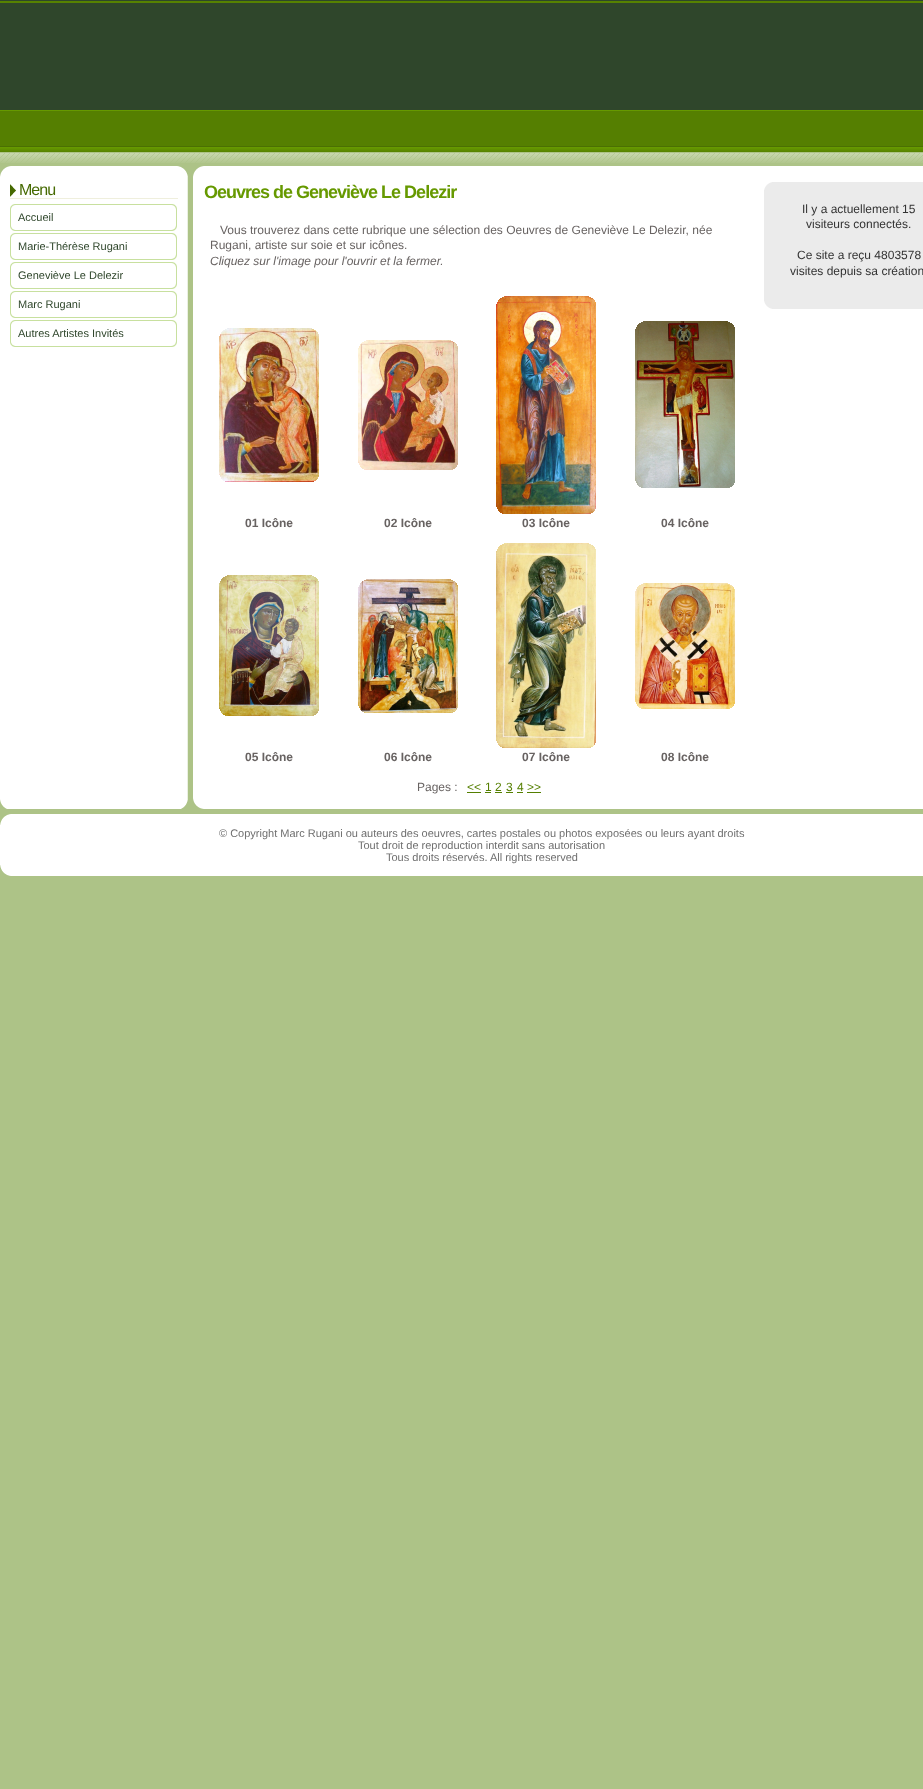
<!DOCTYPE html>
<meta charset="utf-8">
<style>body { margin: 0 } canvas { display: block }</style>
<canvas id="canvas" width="923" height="1789"></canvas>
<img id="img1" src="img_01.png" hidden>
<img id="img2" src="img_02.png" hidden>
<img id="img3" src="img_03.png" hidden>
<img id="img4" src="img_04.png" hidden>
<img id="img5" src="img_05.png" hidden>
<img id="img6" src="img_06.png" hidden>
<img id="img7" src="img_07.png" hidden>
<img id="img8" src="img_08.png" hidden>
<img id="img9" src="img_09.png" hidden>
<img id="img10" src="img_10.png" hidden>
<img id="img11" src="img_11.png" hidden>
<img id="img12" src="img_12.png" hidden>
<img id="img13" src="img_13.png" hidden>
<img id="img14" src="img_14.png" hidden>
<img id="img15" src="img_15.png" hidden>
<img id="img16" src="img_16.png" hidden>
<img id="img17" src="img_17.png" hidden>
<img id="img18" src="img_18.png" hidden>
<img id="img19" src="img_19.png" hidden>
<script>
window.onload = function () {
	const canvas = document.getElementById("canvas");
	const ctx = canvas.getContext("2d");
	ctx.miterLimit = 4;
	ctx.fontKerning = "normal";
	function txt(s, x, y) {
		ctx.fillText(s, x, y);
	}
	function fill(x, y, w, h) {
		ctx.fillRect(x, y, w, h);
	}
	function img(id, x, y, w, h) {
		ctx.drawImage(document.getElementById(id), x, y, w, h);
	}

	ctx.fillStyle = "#ADC387";
	fill(0, 0, 923, 1789);
	img("img1", 0, 153, 923, 10);
	ctx.fillStyle = "#2F462B";
	fill(0, 0, 923, 110);
	ctx.fillStyle = "#578201";
	fill(0, 1, 923, 2);
	img("img2", 0, 110, 923, 42);
	img("img3", 0, 166, 923, 11);
	img("img4", 0, 177, 923, 621);
	img("img5", 10, 184, 6, 13);
	ctx.fillStyle = "#EFEFDD";
	fill(10, 198, 168, 1);
	img("img6", 10, 204, 167, 27);
	img("img6", 10, 233, 167, 27);
	img("img6", 10, 262, 167, 27);
	img("img6", 10, 291, 167, 27);
	img("img6", 10, 320, 167, 27);
	img("img7", 219, 328, 100, 154);
	img("img8", 358, 340, 100, 130);
	img("img9", 496, 296, 100, 218);
	img("img10", 635, 321, 100, 167);
	img("img11", 219, 575, 100, 141);
	img("img12", 358, 579, 100, 134);
	img("img13", 496, 543, 100, 205);
	img("img14", 635, 583, 100, 126);
	ctx.fillStyle = "#557F01";
	fill(467, 792, 14, 1);
	fill(485, 792, 6, 1);
	fill(495, 792, 7, 1);
	fill(506, 792, 7, 1);
	fill(517, 792, 6, 1);
	fill(527, 792, 14, 1);
	ctx.fillStyle = "#EBEBEB";
	fill(764, 182, 159, 127);
	img("img15", 764, 182, 8, 8);
	img("img16", 764, 301, 8, 8);
	img("img17", 0, 798, 923, 11);
	img("img18", 0, 814, 923, 11);
	ctx.fillStyle = "#FFFFFF";
	fill(0, 825, 923, 40);
	img("img19", 0, 865, 923, 11);
	ctx.letterSpacing = "-1px";
	ctx.font = "16px Liberation Sans";
	ctx.fillStyle = "#466A02";
	txt("Menu", 19, 195);
	ctx.letterSpacing = "0px";
	ctx.font = "11px Liberation Sans";
	ctx.fillStyle = "#2F462B";
	txt("Accueil", 18, 221);
	txt("Marie-Thérèse Rugani", 18, 250);
	txt("Geneviève Le Delezir", 18, 279);
	txt("Marc Rugani", 18, 308);
	txt("Autres Artistes Invités", 18, 337);
	ctx.letterSpacing = "-1px";
	ctx.font = "bold 18px Liberation Sans";
	ctx.fillStyle = "#669900";
	txt("Oeuvres de Geneviève Le Delezir", 204, 198);
	ctx.letterSpacing = "0px";
	ctx.font = "12px Liberation Sans";
	ctx.fillStyle = "#686362";
	txt("Vous trouverez dans cette rubrique une sélection des Oeuvres de Geneviève Le Delezir, née", 220, 234);
	txt("Rugani, artiste sur soie et sur icônes.", 210, 249);
	ctx.font = "italic 12px Liberation Sans";
	txt("Cliquez sur l'image pour l'ouvrir et la fermer.", 210, 265);
	ctx.font = "bold 12px Liberation Sans";
	txt("01 Icône", 245, 527);
	txt("02 Icône", 384, 527);
	txt("03 Icône", 522, 527);
	txt("04 Icône", 661, 527);
	txt("05 Icône", 245, 761);
	txt("06 Icône", 384, 761);
	txt("07 Icône", 522, 761);
	txt("08 Icône", 661, 761);
	ctx.font = "12px Liberation Sans";
	txt("Pages :", 417, 791);
	ctx.fillStyle = "#557F01";
	txt("<<", 467, 791);
	txt("1", 485, 791);
	txt("2", 495, 791);
	txt("3", 506, 791);
	txt("4", 517, 791);
	txt(">>", 527, 791);
	ctx.fillStyle = "#333333";
	txt("Il y a actuellement 15", 802, 213);
	txt("visiteurs connectés.", 806, 228);
	txt("Ce site a reçu 4803578", 797, 259);
	txt("visites depuis sa création", 790, 275);
	ctx.font = "11px Liberation Sans";
	ctx.fillStyle = "#6F6F6F";
	txt("© Copyright Marc Rugani ou auteurs des oeuvres, cartes postales ou photos exposées ou leurs ayant droits", 219, 837);
	txt("Tout droit de reproduction interdit sans autorisation", 358, 849);
	txt("Tous droits réservés. All rights reserved", 386, 861);
};
</script>
